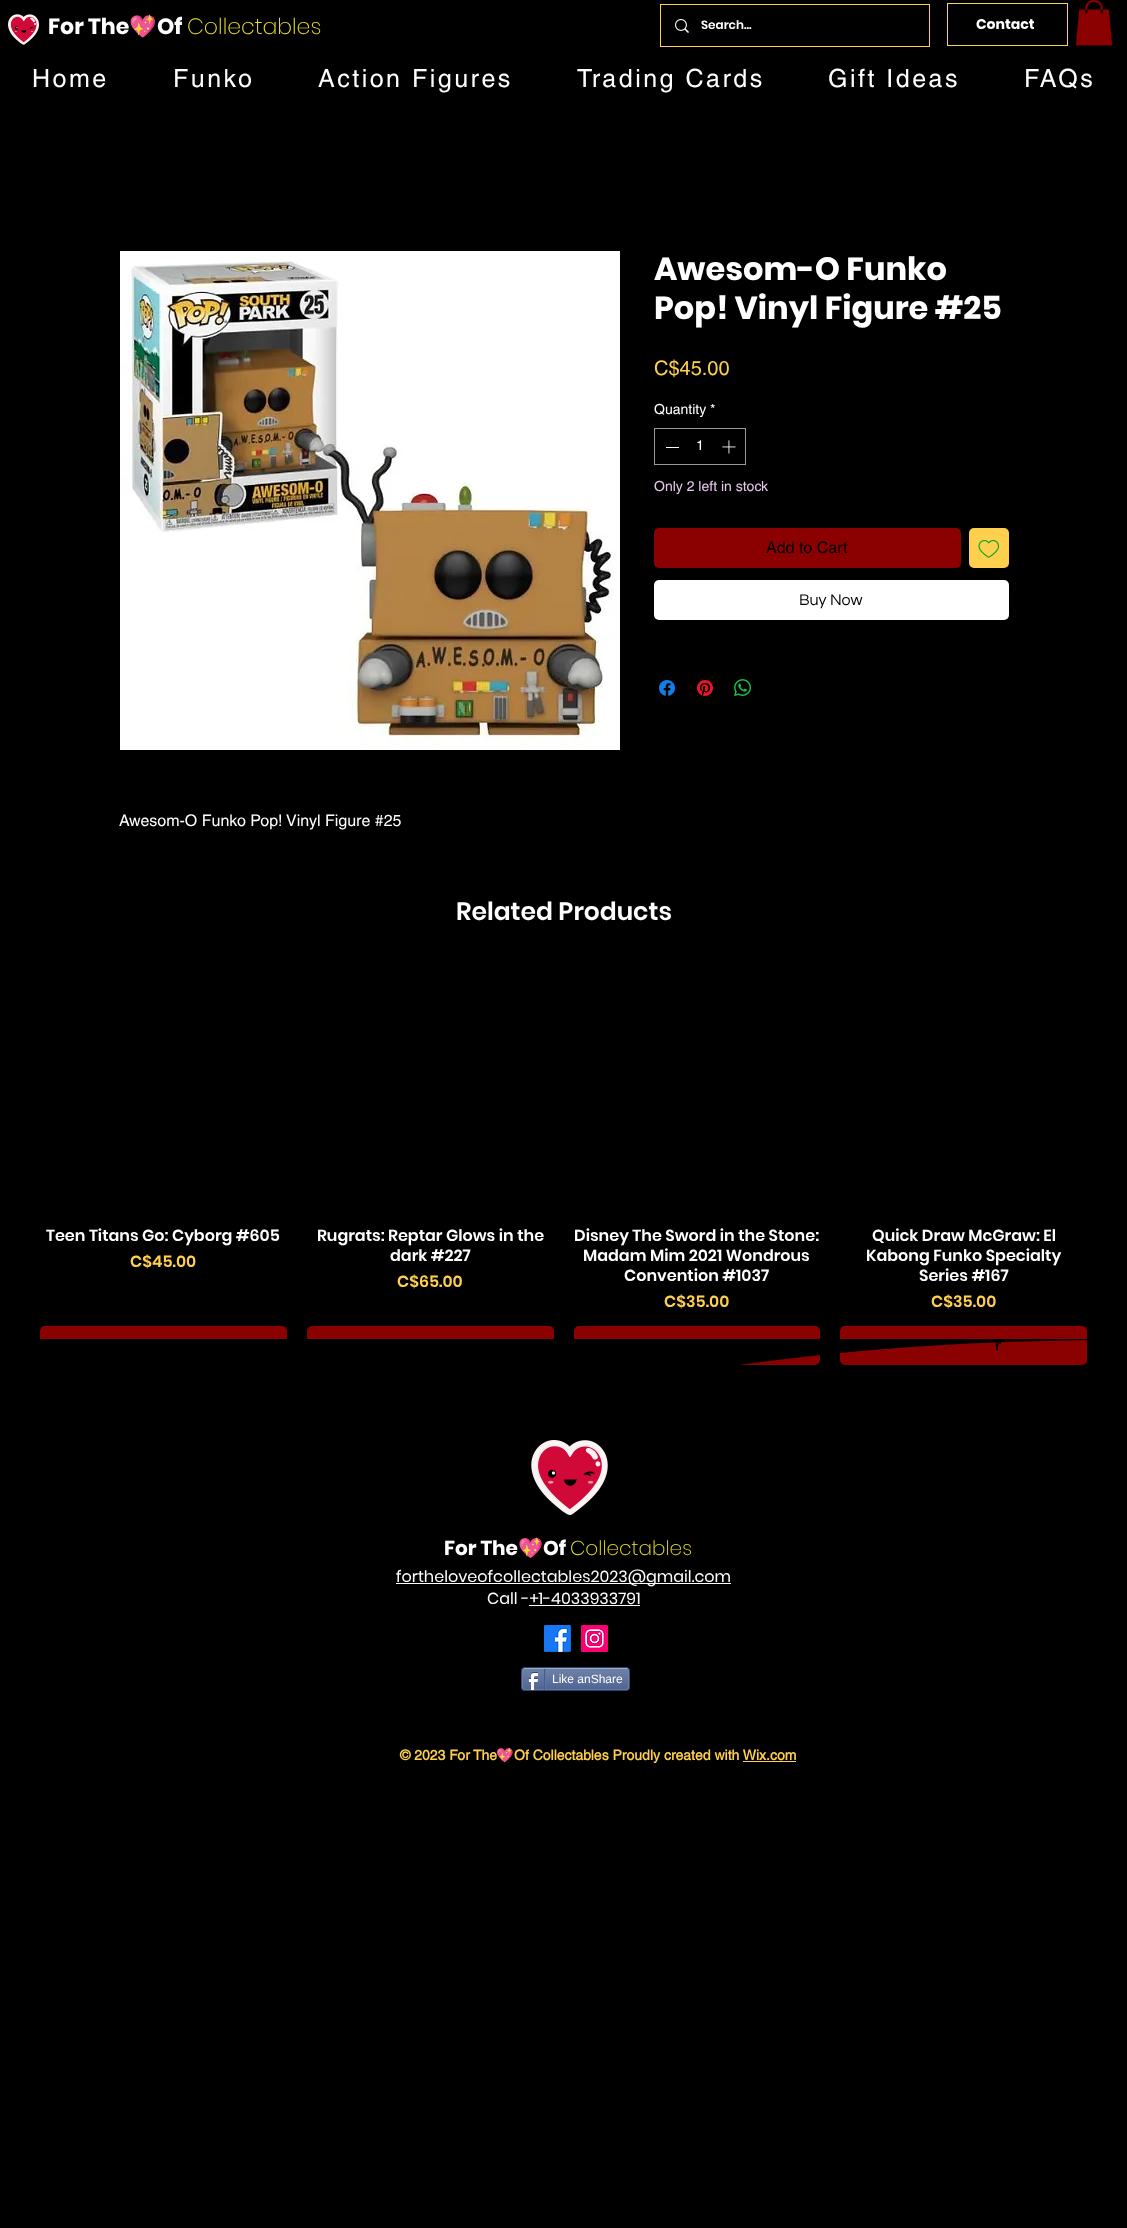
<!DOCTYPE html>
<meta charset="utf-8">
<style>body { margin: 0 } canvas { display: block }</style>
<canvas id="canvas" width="1127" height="2228"></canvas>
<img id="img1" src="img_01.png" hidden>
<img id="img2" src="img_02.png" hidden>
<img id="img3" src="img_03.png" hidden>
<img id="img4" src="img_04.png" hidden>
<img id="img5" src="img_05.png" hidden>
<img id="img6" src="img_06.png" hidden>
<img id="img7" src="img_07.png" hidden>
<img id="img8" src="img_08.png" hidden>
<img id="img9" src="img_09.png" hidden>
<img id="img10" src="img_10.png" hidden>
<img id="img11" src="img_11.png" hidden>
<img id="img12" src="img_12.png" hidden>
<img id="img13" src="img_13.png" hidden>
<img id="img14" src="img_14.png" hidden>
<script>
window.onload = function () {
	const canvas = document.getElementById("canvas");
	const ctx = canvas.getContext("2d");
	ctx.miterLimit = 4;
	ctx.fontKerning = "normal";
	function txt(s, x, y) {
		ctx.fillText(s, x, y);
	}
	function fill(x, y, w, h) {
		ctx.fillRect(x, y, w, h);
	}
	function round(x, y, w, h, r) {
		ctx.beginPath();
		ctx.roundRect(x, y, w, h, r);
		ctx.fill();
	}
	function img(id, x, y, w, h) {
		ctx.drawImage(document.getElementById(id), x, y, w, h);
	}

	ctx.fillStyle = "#000000";
	fill(0, 0, 1127, 2228);
	img("img1", 8, 14, 31, 31);
	ctx.strokeStyle = "#FFCF4E";
	ctx.strokeRect(660.5, 4.5, 269, 42);
	img("img2", 675, 19, 14, 14);
	ctx.strokeRect(947.5, 3.5, 120, 42);
	img("img3", 1076, 0, 37, 46);
	ctx.strokeStyle = "#999999";
	ctx.strokeRect(654.5, 428.5, 91, 36);
	ctx.fillStyle = "#FFFFFF";
	fill(666, 447, 13, 1);
	img("img4", 722, 440, 14, 14);
	ctx.fillStyle = "#8B0000";
	round(654, 528, 307, 40, 5);
	ctx.fillStyle = "#FFCF4E";
	round(969, 528, 40, 40, 5);
	img("img5", 978, 540, 22, 18);
	ctx.fillStyle = "#FFFFFF";
	round(654, 580, 355, 40, 5);
	img("img6", 659, 680, 16, 16);
	img("img7", 697, 680, 16, 16);
	img("img8", 734, 679, 17, 17);
	img("img9", 120, 251, 500, 499);
	ctx.fillStyle = "#8B0000";
	round(40, 1326, 247, 39, 5);
	round(307, 1326, 247, 39, 5);
	round(574, 1326, 246, 39, 5);
	round(840, 1326, 247, 39, 5);
	ctx.save();
	ctx.beginPath();
	ctx.rect(0, 1339, 1127, 100);
	ctx.clip();
	ctx.fillStyle = "#000000";
	ctx.beginPath();
	ctx.moveTo(1127, 1338);
	ctx.lineTo(1127, 1340);
	ctx.bezierCurveTo(860, 1340, 721, 1366, 492, 1405);
	ctx.bezierCurveTo(288, 1439, 0, 1438, 0, 1438);
	ctx.lineTo(0, 1338);
	ctx.closePath();
	ctx.fill();
	ctx.restore();
	img("img10", 531, 1440, 77, 75);
	ctx.fillStyle = "#FFFFFF";
	fill(396, 1583, 335, 1);
	fill(529, 1605, 111, 1);
	img("img11", 544, 1625, 27, 27);
	img("img12", 581, 1625, 27, 27);
	ctx.beginPath();
	ctx.roundRect(521.5, 1667.5, 108, 23, 2.5);
	ctx.strokeStyle = "#2D4565";
	ctx.stroke();
	img("img13", 522, 1669, 107, 21);
	ctx.beginPath();
	ctx.moveTo(523, 1669);
	ctx.lineTo(524, 1668.5);
	ctx.lineTo(627, 1668.5);
	ctx.lineTo(628, 1669);
	ctx.strokeStyle = "#9AABC6";
	ctx.stroke();
	ctx.beginPath();
	ctx.moveTo(628, 1669);
	ctx.bezierCurveTo(629, 1669.5, 629, 1688.5, 628, 1689);
	ctx.strokeStyle = "#6F83AD";
	ctx.stroke();
	ctx.beginPath();
	ctx.moveTo(628, 1689);
	ctx.lineTo(627, 1689.5);
	ctx.lineTo(524, 1689.5);
	ctx.lineTo(523, 1689);
	ctx.strokeStyle = "#6176A3";
	ctx.stroke();
	ctx.beginPath();
	ctx.moveTo(523, 1689);
	ctx.bezierCurveTo(522, 1688.5, 522, 1669.5, 523, 1669);
	ctx.strokeStyle = "#6F83AD";
	ctx.stroke();
	img("img14", 528, 1672, 10, 18);
	ctx.fillStyle = "#425E85";
	fill(544, 1669, 1, 21);
	ctx.fillStyle = "#6176A3";
	fill(545, 1669, 1, 20);
	ctx.fillStyle = "#FFCF4E";
	fill(743, 1761, 53, 1);
	ctx.font = "bold 22px Poppins";
	ctx.fillStyle = "#FFFFFF";
	txt("For The", 48, 34);
	ctx.font = "bold 22px Noto Color Emoji";
	txt("💖", 129, 34);
	ctx.font = "bold 22px Poppins";
	txt("Of", 157, 34);
	ctx.font = "200 22px Poppins";
	ctx.fillStyle = "#EBE424";
	txt("Collectables", 187, 34);
	ctx.font = "600 12px Poppins";
	ctx.fillStyle = "#FFFFFF";
	txt("Search...", 701, 29);
	ctx.font = "bold 14px Poppins";
	txt("Contact", 976, 29);
	ctx.letterSpacing = "2.5px";
	ctx.font = "25px helvetica";
	txt("Home", 32, 87);
	txt("Funko", 173, 87);
	txt("Action Figures", 318, 87);
	txt("Trading Cards", 577, 87);
	txt("Gift Ideas", 828, 87);
	txt("FAQs", 1024, 87);
	ctx.letterSpacing = "0px";
	ctx.font = "bold 32px Poppins";
	txt("Awesom-O Funko", 654, 280);
	txt("Pop! Vinyl Figure #25", 654, 319);
	ctx.font = "20px helvetica";
	ctx.fillStyle = "#FFCF4E";
	txt("C$45.00", 654, 375);
	ctx.font = "14px helvetica";
	ctx.fillStyle = "#FFFFFF";
	txt("Quantity *", 654, 414);
	txt("1", 696, 450);
	ctx.fillStyle = "#E6C7EB";
	txt("Only 2 left in stock", 654, 491);
	ctx.font = "16px helvetica";
	ctx.fillStyle = "#000000";
	txt("Add to Cart", 766, 553);
	ctx.font = "16px Questrial";
	txt("Buy Now", 799, 605);
	ctx.font = "16px helvetica";
	ctx.fillStyle = "#FFFFFF";
	txt("Awesom-O Funko Pop! Vinyl Figure #25", 119, 826);
	ctx.font = "600 25px Poppins";
	txt("Related Products", 456, 920);
	ctx.font = "600 16px Poppins";
	txt("Teen Titans Go: Cyborg #605", 46, 1241);
	ctx.fillStyle = "#FFCF4E";
	txt("C$45.00", 130, 1267);
	ctx.fillStyle = "#FFFFFF";
	txt("Rugrats: Reptar Glows in the", 317, 1241);
	txt("dark #227", 390, 1261);
	ctx.fillStyle = "#FFCF4E";
	txt("C$65.00", 397, 1287);
	ctx.fillStyle = "#FFFFFF";
	txt("Disney The Sword in the Stone:", 574, 1241);
	txt("Madam Mim 2021 Wondrous", 583, 1261);
	txt("Convention #1037", 624, 1281);
	ctx.fillStyle = "#FFCF4E";
	txt("C$35.00", 664, 1307);
	ctx.fillStyle = "#FFFFFF";
	txt("Quick Draw McGraw: El", 872, 1241);
	txt("Kabong Funko Specialty", 866, 1261);
	txt("Series #167", 919, 1281);
	ctx.fillStyle = "#FFCF4E";
	txt("C$35.00", 931, 1307);
	ctx.font = "600 15px Poppins";
	ctx.fillStyle = "#000000";
	txt("r", 995, 1350);
	ctx.font = "bold 20px Poppins";
	ctx.fillStyle = "#FFFFFF";
	txt("For The", 444, 1555);
	ctx.font = "bold 20px Noto Color Emoji";
	txt("💖", 518, 1555);
	ctx.font = "bold 20px Poppins";
	txt("Of", 543, 1555);
	ctx.font = "200 20px Poppins";
	ctx.fillStyle = "#EBE424";
	txt("Collectables", 570, 1555);
	ctx.font = "16px Poppins";
	ctx.fillStyle = "#FFFFFF";
	txt("fortheloveofcollectables2023@gmail.com", 396, 1582);
	txt("Call -+1-4033933791", 487, 1604);
	ctx.font = "12px Liberation Sans";
	txt("Like anShare", 552, 1683);
	ctx.font = "bold 14px helvetica";
	ctx.fillStyle = "#FFCF4E";
	txt("© 2023 For The", 400, 1760);
	ctx.font = "bold 14px Noto Color Emoji";
	txt("💖", 496, 1760);
	ctx.font = "bold 14px helvetica";
	txt("Of Collectables Proudly created with Wix.com", 514, 1760);
};
</script>
